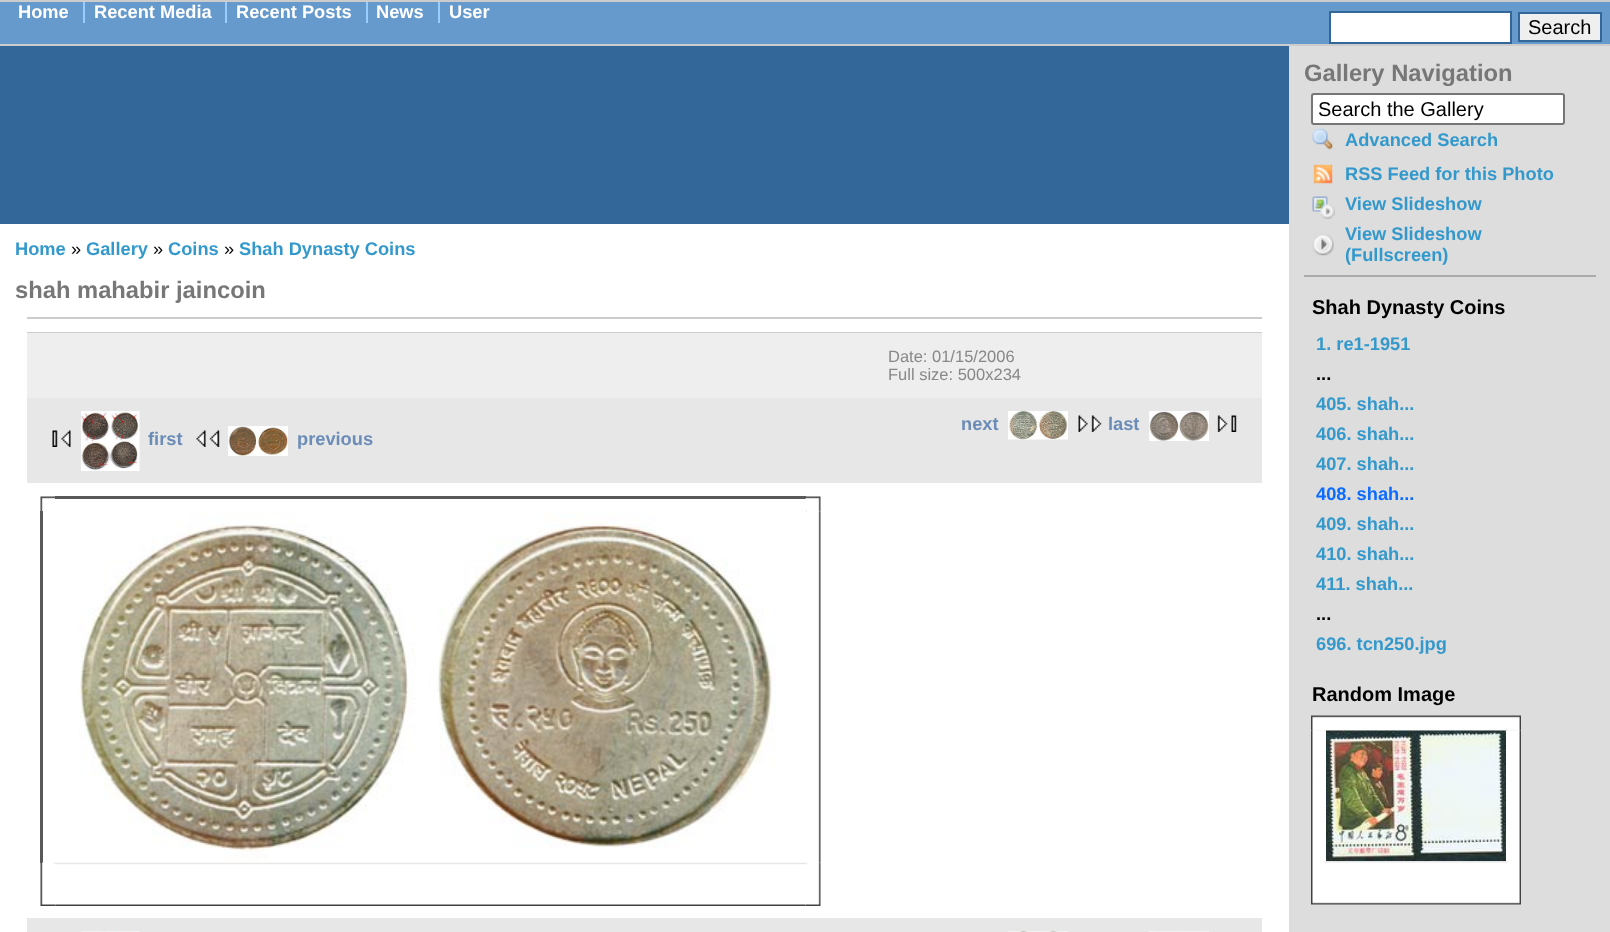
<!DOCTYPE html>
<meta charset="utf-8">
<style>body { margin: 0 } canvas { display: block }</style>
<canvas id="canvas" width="1610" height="932"></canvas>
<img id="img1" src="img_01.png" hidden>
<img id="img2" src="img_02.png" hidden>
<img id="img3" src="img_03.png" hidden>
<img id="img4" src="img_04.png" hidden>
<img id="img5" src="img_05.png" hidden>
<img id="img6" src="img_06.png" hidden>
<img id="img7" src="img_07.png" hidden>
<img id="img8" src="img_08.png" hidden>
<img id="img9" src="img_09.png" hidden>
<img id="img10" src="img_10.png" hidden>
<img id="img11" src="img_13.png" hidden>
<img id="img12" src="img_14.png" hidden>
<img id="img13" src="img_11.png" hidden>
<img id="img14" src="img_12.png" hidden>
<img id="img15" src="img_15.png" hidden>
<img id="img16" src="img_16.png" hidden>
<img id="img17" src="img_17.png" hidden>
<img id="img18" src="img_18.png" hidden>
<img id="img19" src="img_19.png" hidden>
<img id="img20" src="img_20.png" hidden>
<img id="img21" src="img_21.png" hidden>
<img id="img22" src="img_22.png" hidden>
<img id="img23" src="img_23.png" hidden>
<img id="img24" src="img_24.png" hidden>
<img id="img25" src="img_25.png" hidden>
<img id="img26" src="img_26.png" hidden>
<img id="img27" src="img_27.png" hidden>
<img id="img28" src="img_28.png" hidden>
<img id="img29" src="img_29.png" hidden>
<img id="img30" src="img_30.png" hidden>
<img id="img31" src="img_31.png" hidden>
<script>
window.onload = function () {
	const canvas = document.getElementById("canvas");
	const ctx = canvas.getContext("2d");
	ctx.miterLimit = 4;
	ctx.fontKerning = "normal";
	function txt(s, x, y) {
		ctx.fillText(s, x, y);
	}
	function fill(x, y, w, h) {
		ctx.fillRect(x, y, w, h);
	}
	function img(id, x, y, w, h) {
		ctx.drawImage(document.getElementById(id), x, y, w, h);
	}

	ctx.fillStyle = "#FFFFFF";
	fill(0, 0, 1610, 932);
	ctx.fillStyle = "#6699CC";
	fill(0, 2, 1610, 42);
	ctx.fillStyle = "#CCCCCC";
	fill(0, 0, 1610, 2);
	ctx.fillStyle = "#99CCFF";
	fill(83, 2, 2, 21);
	fill(225, 2, 2, 21);
	fill(366, 2, 2, 21);
	fill(438, 2, 2, 21);
	ctx.fillStyle = "#FFFFFF";
	ctx.beginPath();
	ctx.rect(1330, 12, 181, 31);
	ctx.fill();
	ctx.strokeStyle = "#336699";
	ctx.lineWidth = 2;
	ctx.stroke();
	ctx.fillStyle = "#EFEFEF";
	ctx.beginPath();
	ctx.rect(1519, 13, 82, 28);
	ctx.fill();
	ctx.stroke();
	ctx.fillStyle = "#CCCCCC";
	fill(0, 44, 1610, 2);
	ctx.fillStyle = "#336699";
	fill(0, 46, 1289, 178);
	ctx.fillStyle = "#CCCCCC";
	fill(27, 317, 1235, 2);
	fill(27, 332, 1235, 1);
	ctx.fillStyle = "#EEEEEE";
	fill(27, 333, 1235, 65);
	ctx.fillStyle = "#E7E7E7";
	fill(27, 398, 1235, 85);
	img("img1", 1008, 411, 60, 29);
	img("img2", 1078, 415, 24, 17);
	img("img3", 1149, 411, 60, 30);
	img("img4", 1217, 415, 20, 17);
	img("img5", 52, 430, 19, 17);
	img("img6", 81, 411, 59, 60);
	img("img7", 196, 430, 24, 17);
	img("img8", 228, 426, 60, 30);
	img("img9", 40, 496, 16, 16);
	ctx.fillStyle = "#595959";
	fill(55, 496, 751, 3);
	img("img10", 805, 496, 16, 16);
	fill(40, 511, 3, 352);
	img("img11", 40, 862, 16, 44);
	img("img12", 55, 862, 751, 44);
	img("img13", 56, 512, 749, 351);
	img("img14", 806, 511, 15, 352);
	img("img15", 805, 862, 16, 44);
	ctx.fillStyle = "#E7E7E7";
	fill(27, 918, 1235, 14);
	img("img16", 81, 931, 59, 1);
	img("img17", 1008, 931, 60, 1);
	img("img18", 1149, 931, 60, 1);
	ctx.fillStyle = "#DDDDDD";
	fill(1289, 46, 321, 886);
	ctx.fillStyle = "#FFFFFF";
	ctx.beginPath();
	ctx.roundRect(1312, 94, 252, 30, 2);
	ctx.fill();
	ctx.strokeStyle = "#767676";
	ctx.stroke();
	img("img19", 1312, 128, 21, 22);
	ctx.fillStyle = "#AAAAAA";
	fill(1304, 275, 292, 2);
	img("img20", 1313, 164, 20, 20);
	img("img21", 1312, 196, 23, 23);
	img("img22", 1312, 234, 22, 22);
	img("img23", 1311, 715, 15, 16);
	img("img24", 1326, 715, 180, 16);
	img("img25", 1506, 715, 15, 16);
	img("img26", 1311, 730, 15, 131);
	img("img27", 1326, 730, 180, 131);
	img("img28", 1506, 730, 15, 131);
	img("img29", 1311, 861, 15, 44);
	img("img30", 1326, 861, 180, 44);
	img("img31", 1506, 861, 15, 44);
	ctx.font = "bold 18.25px Liberation Sans";
	ctx.fillStyle = "#FFFFFF";
	txt("Home", 18, 18);
	txt("Recent Media", 94, 18);
	txt("Recent Posts", 236, 18);
	txt("News", 376, 18);
	txt("User", 449, 18);
	ctx.font = "20px Liberation Sans";
	ctx.fillStyle = "#000000";
	txt("Search", 1528, 34);
	ctx.font = "bold 18.25px Liberation Sans";
	ctx.fillStyle = "#3399CC";
	txt("Home", 15, 255);
	ctx.font = "18.25px Liberation Sans";
	ctx.fillStyle = "#000000";
	txt("»", 71, 255);
	ctx.font = "bold 18.25px Liberation Sans";
	ctx.fillStyle = "#3399CC";
	txt("Gallery", 86, 255);
	ctx.font = "18.25px Liberation Sans";
	ctx.fillStyle = "#000000";
	txt("»", 153, 255);
	ctx.font = "bold 18.25px Liberation Sans";
	ctx.fillStyle = "#3399CC";
	txt("Coins", 168, 255);
	ctx.font = "18.25px Liberation Sans";
	ctx.fillStyle = "#000000";
	txt("»", 224, 255);
	ctx.font = "bold 18.25px Liberation Sans";
	ctx.fillStyle = "#3399CC";
	txt("Shah Dynasty Coins", 239, 255);
	ctx.font = "bold 23.75px Liberation Sans";
	ctx.fillStyle = "#777777";
	txt("shah mahabir jaincoin", 15, 298);
	ctx.font = "16.5px Liberation Sans";
	ctx.fillStyle = "#888888";
	txt("Date: 01/15/2006", 888, 362);
	txt("Full size: 500x234", 888, 380);
	ctx.font = "bold 18.25px Liberation Sans";
	ctx.fillStyle = "#6B8CB7";
	txt("next", 961, 430);
	txt("last", 1108, 430);
	txt("first", 148, 445);
	txt("previous", 297, 445);
	ctx.font = "bold 23.75px Liberation Sans";
	ctx.fillStyle = "#777777";
	txt("Gallery Navigation", 1304, 81);
	ctx.font = "20px Liberation Sans";
	ctx.fillStyle = "#000000";
	txt("Search the Gallery", 1318, 116);
	ctx.font = "bold 18.25px Liberation Sans";
	ctx.fillStyle = "#3399CC";
	txt("Advanced Search", 1345, 146);
	txt("RSS Feed for this Photo", 1345, 180);
	txt("View Slideshow", 1345, 210);
	txt("View Slideshow", 1345, 240);
	txt("(Fullscreen)", 1345, 261);
	ctx.font = "bold 20px Liberation Sans";
	ctx.fillStyle = "#000000";
	txt("Shah Dynasty Coins", 1312, 314);
	ctx.font = "bold 18.25px Liberation Sans";
	ctx.fillStyle = "#3399CC";
	txt("1. re1-1951", 1316, 350);
	ctx.fillStyle = "#000000";
	txt("...", 1316, 380);
	ctx.fillStyle = "#3399CC";
	txt("405. shah...", 1316, 410);
	txt("406. shah...", 1316, 440);
	txt("407. shah...", 1316, 470);
	ctx.fillStyle = "#0B6CFF";
	txt("408. shah...", 1316, 500);
	ctx.fillStyle = "#3399CC";
	txt("409. shah...", 1316, 530);
	txt("410. shah...", 1316, 560);
	txt("411. shah...", 1316, 590);
	ctx.fillStyle = "#000000";
	txt("...", 1316, 620);
	ctx.fillStyle = "#3399CC";
	txt("696. tcn250.jpg", 1316, 650);
	ctx.font = "bold 20px Liberation Sans";
	ctx.fillStyle = "#000000";
	txt("Random Image", 1312, 701);
};
</script>
